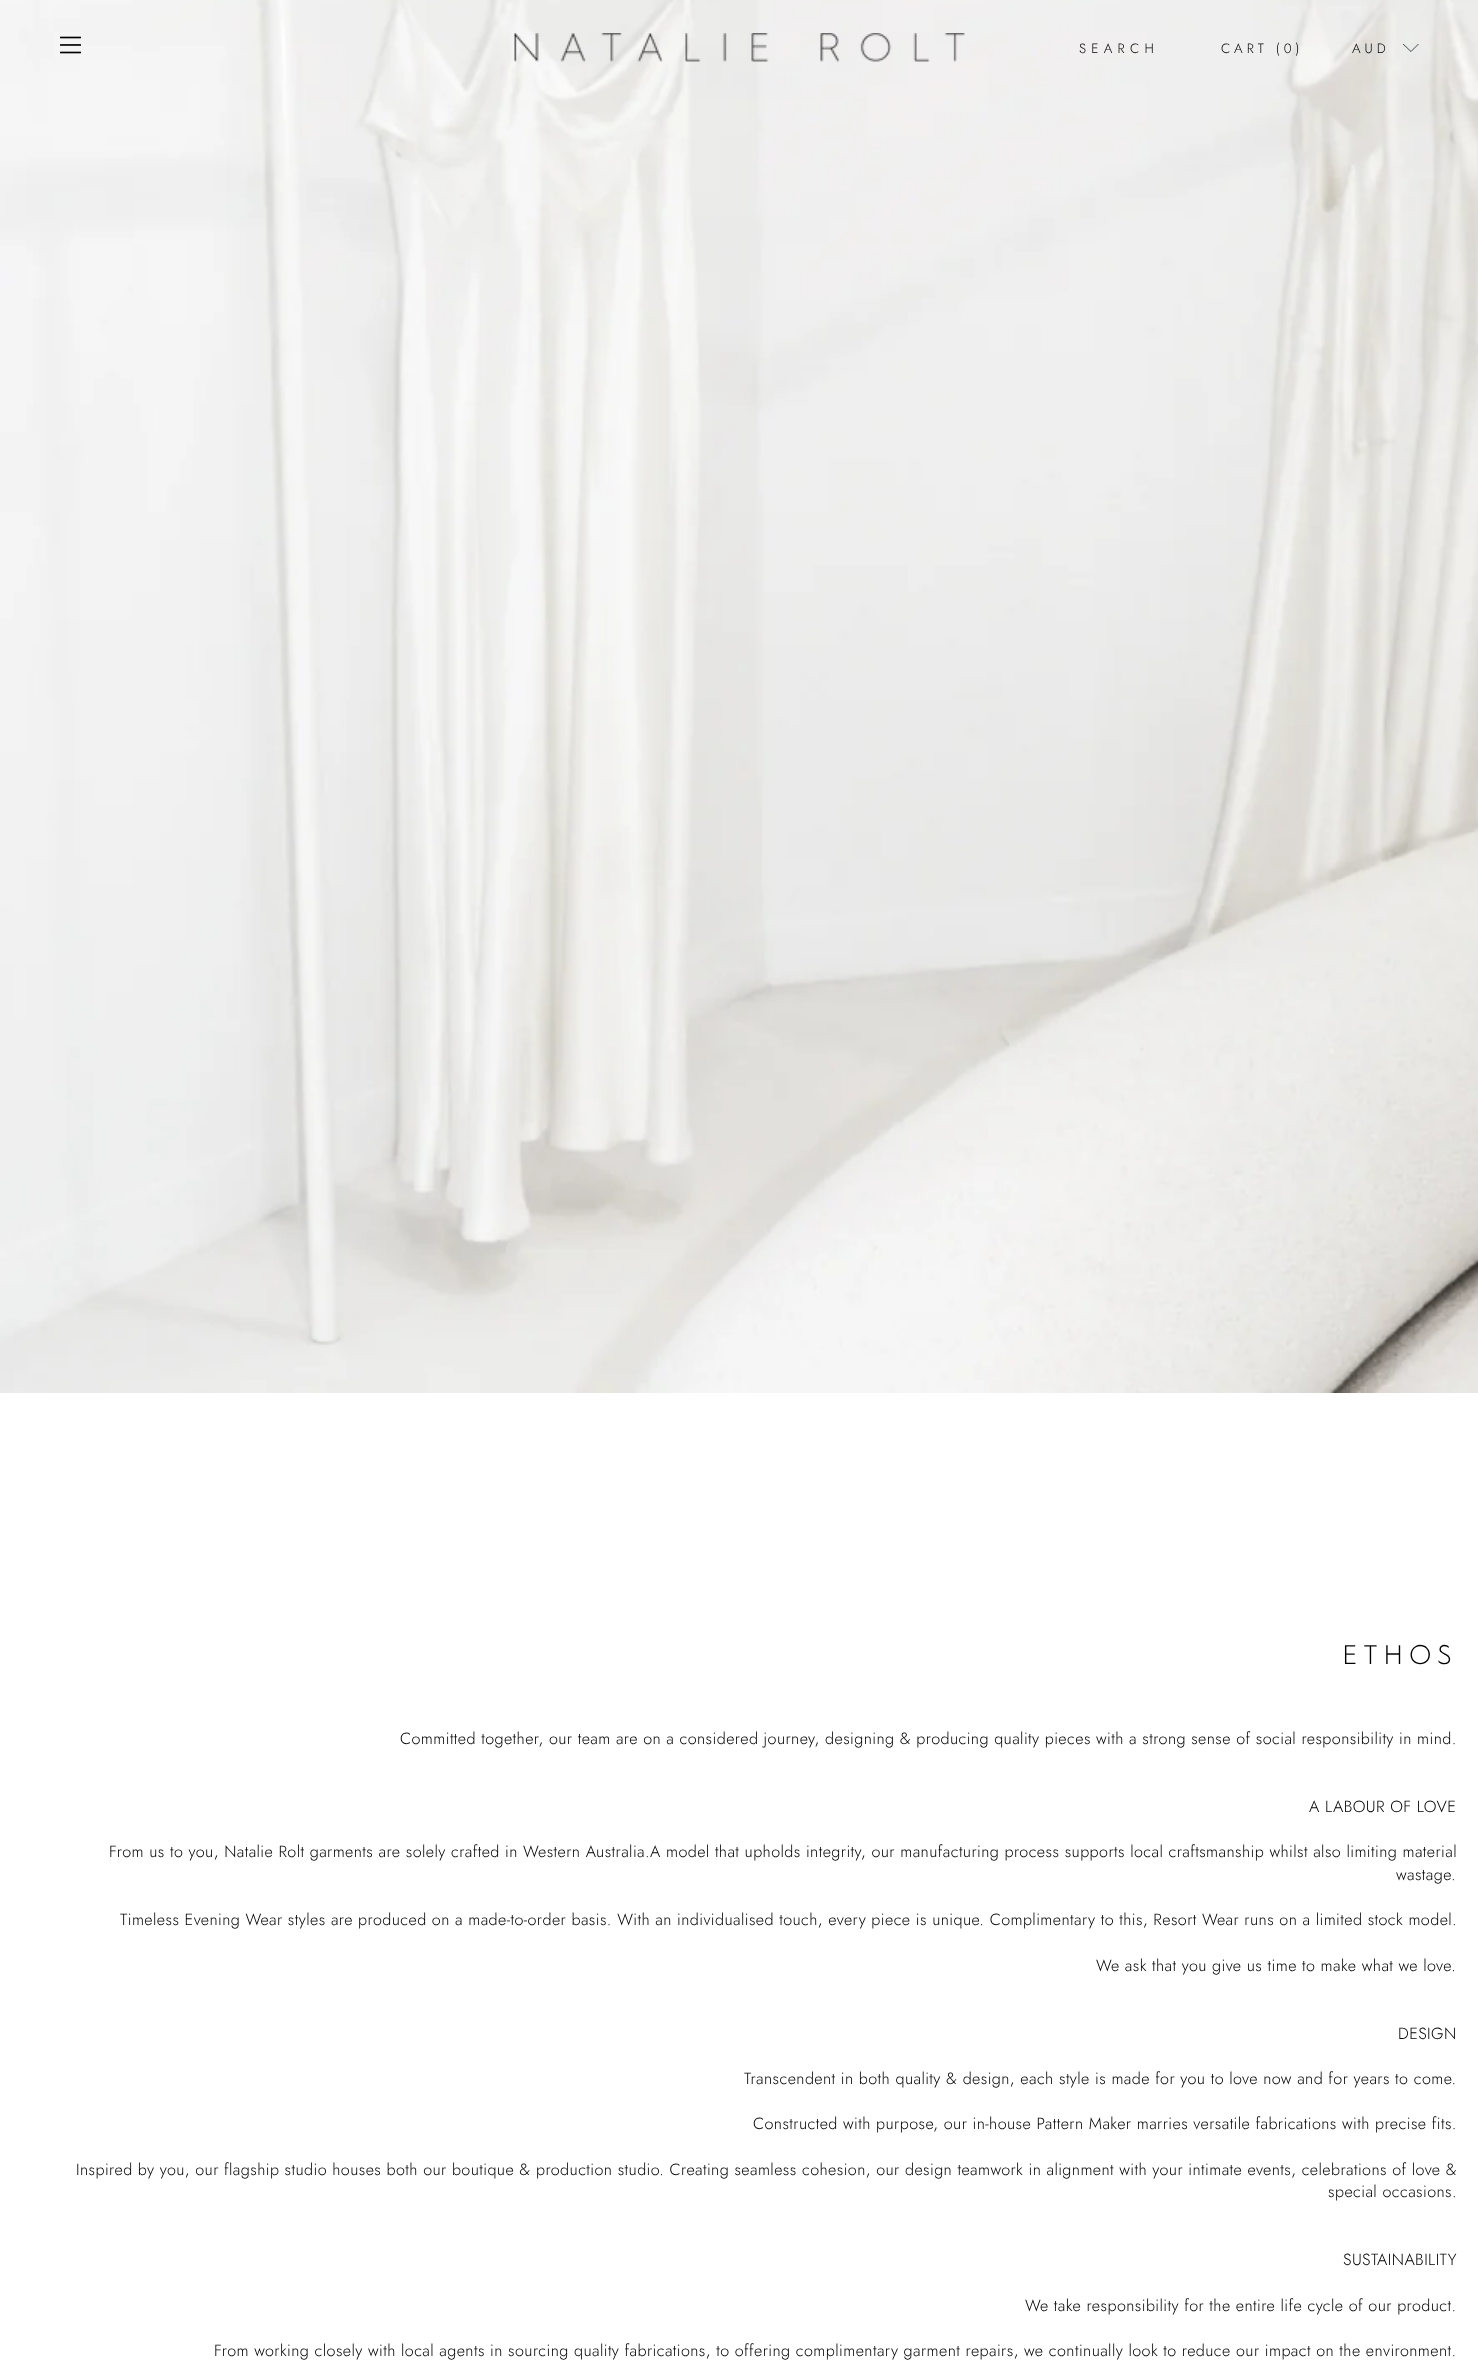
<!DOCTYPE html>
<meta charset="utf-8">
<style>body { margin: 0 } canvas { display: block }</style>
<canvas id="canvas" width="1478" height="2362"></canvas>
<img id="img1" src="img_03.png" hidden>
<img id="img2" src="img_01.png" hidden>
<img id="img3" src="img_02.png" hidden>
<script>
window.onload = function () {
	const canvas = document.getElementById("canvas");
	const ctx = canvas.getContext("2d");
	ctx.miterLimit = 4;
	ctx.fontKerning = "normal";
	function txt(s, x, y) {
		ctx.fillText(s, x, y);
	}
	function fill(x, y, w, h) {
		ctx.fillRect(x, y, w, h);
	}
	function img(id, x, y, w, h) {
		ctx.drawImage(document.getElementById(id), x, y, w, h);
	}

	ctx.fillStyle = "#FFFFFF";
	fill(0, 0, 1478, 2362);
	img("img1", 0, 0, 1478, 1393);
	img("img2", 60, 36, 21, 18);
	img("img3", 514, 33, 451, 29);
	ctx.save();
	ctx.beginPath();
	ctx.rect(1403, 44, 16, 9);
	ctx.clip();
	ctx.beginPath();
	ctx.moveTo(1418.5, 44);
	ctx.lineTo(1411, 51.5);
	ctx.lineTo(1403, 44);
	ctx.strokeStyle = "#000000";
	ctx.lineWidth = 0.7;
	ctx.lineCap = "round";
	ctx.lineJoin = "round";
	ctx.stroke();
	ctx.restore();
	ctx.letterSpacing = "5.25px";
	ctx.font = "300 13.5px Jost";
	ctx.fillStyle = "#000000";
	txt("SEARCH", 1079, 53);
	ctx.letterSpacing = "4px";
	txt("CART (0)", 1221, 53);
	txt("AUD", 1352, 53);
	ctx.letterSpacing = "5.5px";
	ctx.font = "300 27px 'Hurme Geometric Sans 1'";
	txt("ETHOS", 1342, 1664);
	ctx.letterSpacing = "0.41px";
	ctx.font = "300 16.2px Jost";
	txt("Committed together, our team are on a considered journey, designing & producing quality pieces with a strong sense of social responsibility in mind.", 400, 1744);
	txt("A LABOUR OF LOVE", 1309, 1812);
	txt("From us to you, Natalie Rolt garments are solely crafted in Western Australia.A model that upholds integrity, our manufacturing process supports local craftsmanship whilst also limiting material", 109, 1857);
	txt("wastage.", 1396, 1880);
	txt("Timeless Evening Wear styles are produced on a made-to-order basis. With an individualised touch, every piece is unique. Complimentary to this, Resort Wear runs on a limited stock model.", 120, 1925);
	txt("We ask that you give us time to make what we love.", 1096, 1971);
	txt("DESIGN", 1398, 2039);
	txt("Transcendent in both quality & design, each style is made for you to love now and for years to come.", 744, 2084);
	txt("Constructed with purpose, our in-house Pattern Maker marries versatile fabrications with precise fits.", 753, 2129);
	txt("Inspired by you, our flagship studio houses both our boutique & production studio. Creating seamless cohesion, our design teamwork in alignment with your intimate events, celebrations of love &", 76, 2175);
	txt("special occasions.", 1328, 2197);
	txt("SUSTAINABILITY", 1343, 2265);
	txt("We take responsibility for the entire life cycle of our product.", 1025, 2311);
	txt("From working closely with local agents in sourcing quality fabrications, to offering complimentary garment repairs, we continually look to reduce our impact on the environment.", 214, 2356);
};
</script>
